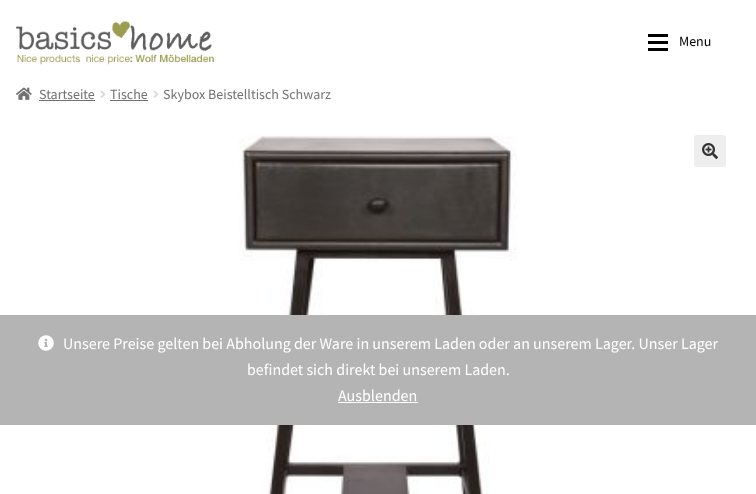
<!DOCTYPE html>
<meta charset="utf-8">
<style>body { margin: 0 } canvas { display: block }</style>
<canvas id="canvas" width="756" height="494"></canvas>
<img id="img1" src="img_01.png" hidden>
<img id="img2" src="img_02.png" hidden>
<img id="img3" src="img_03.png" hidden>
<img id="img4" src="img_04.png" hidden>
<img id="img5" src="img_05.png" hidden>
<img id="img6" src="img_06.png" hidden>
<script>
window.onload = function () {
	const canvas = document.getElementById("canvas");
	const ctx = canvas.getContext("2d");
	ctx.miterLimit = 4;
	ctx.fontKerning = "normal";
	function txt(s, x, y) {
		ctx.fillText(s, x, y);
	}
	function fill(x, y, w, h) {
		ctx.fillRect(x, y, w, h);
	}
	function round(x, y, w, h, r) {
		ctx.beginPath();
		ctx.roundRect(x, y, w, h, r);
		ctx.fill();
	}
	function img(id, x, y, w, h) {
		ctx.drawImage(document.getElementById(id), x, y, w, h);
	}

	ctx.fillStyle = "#FFFFFF";
	fill(0, 0, 756, 494);
	img("img1", 16, 21, 198, 44);
	ctx.fillStyle = "#000000";
	fill(648, 34, 20, 3);
	fill(648, 41, 20, 3);
	fill(648, 48, 20, 3);
	img("img2", 16, 87, 16, 13);
	ctx.fillStyle = "#727272";
	fill(39, 100, 56, 1);
	img("img3", 100, 90, 6, 8);
	fill(110, 100, 38, 1);
	img("img3", 153, 90, 6, 8);
	img("img4", 239, 135, 278, 359);
	ctx.fillStyle = "#EEEEEE";
	round(694, 135, 32, 32, 3);
	img("img5", 702, 143, 16, 16);
	ctx.fillStyle = "#B5B4B5";
	fill(0, 315, 756, 110);
	img("img6", 38, 335, 16, 16);
	ctx.fillStyle = "#FFFFFF";
	fill(338, 402, 80, 1);
	ctx.font = "14px Source Sans Pro";
	ctx.fillStyle = "#000000";
	txt("Menu", 679, 46);
	ctx.fillStyle = "#727272";
	txt("Startseite", 39, 99);
	txt("Tische", 110, 99);
	txt("Skybox Beistelltisch Schwarz", 163, 99);
	ctx.font = "16px Source Sans Pro";
	ctx.fillStyle = "#FFFFFF";
	txt("Unsere Preise gelten bei Abholung der Ware in unserem Laden oder an unserem Lager. Unser Lager", 63, 349);
	txt("befindet sich direkt bei unserem Laden.", 247, 375);
	txt("Ausblenden", 338, 401);
};
</script>
